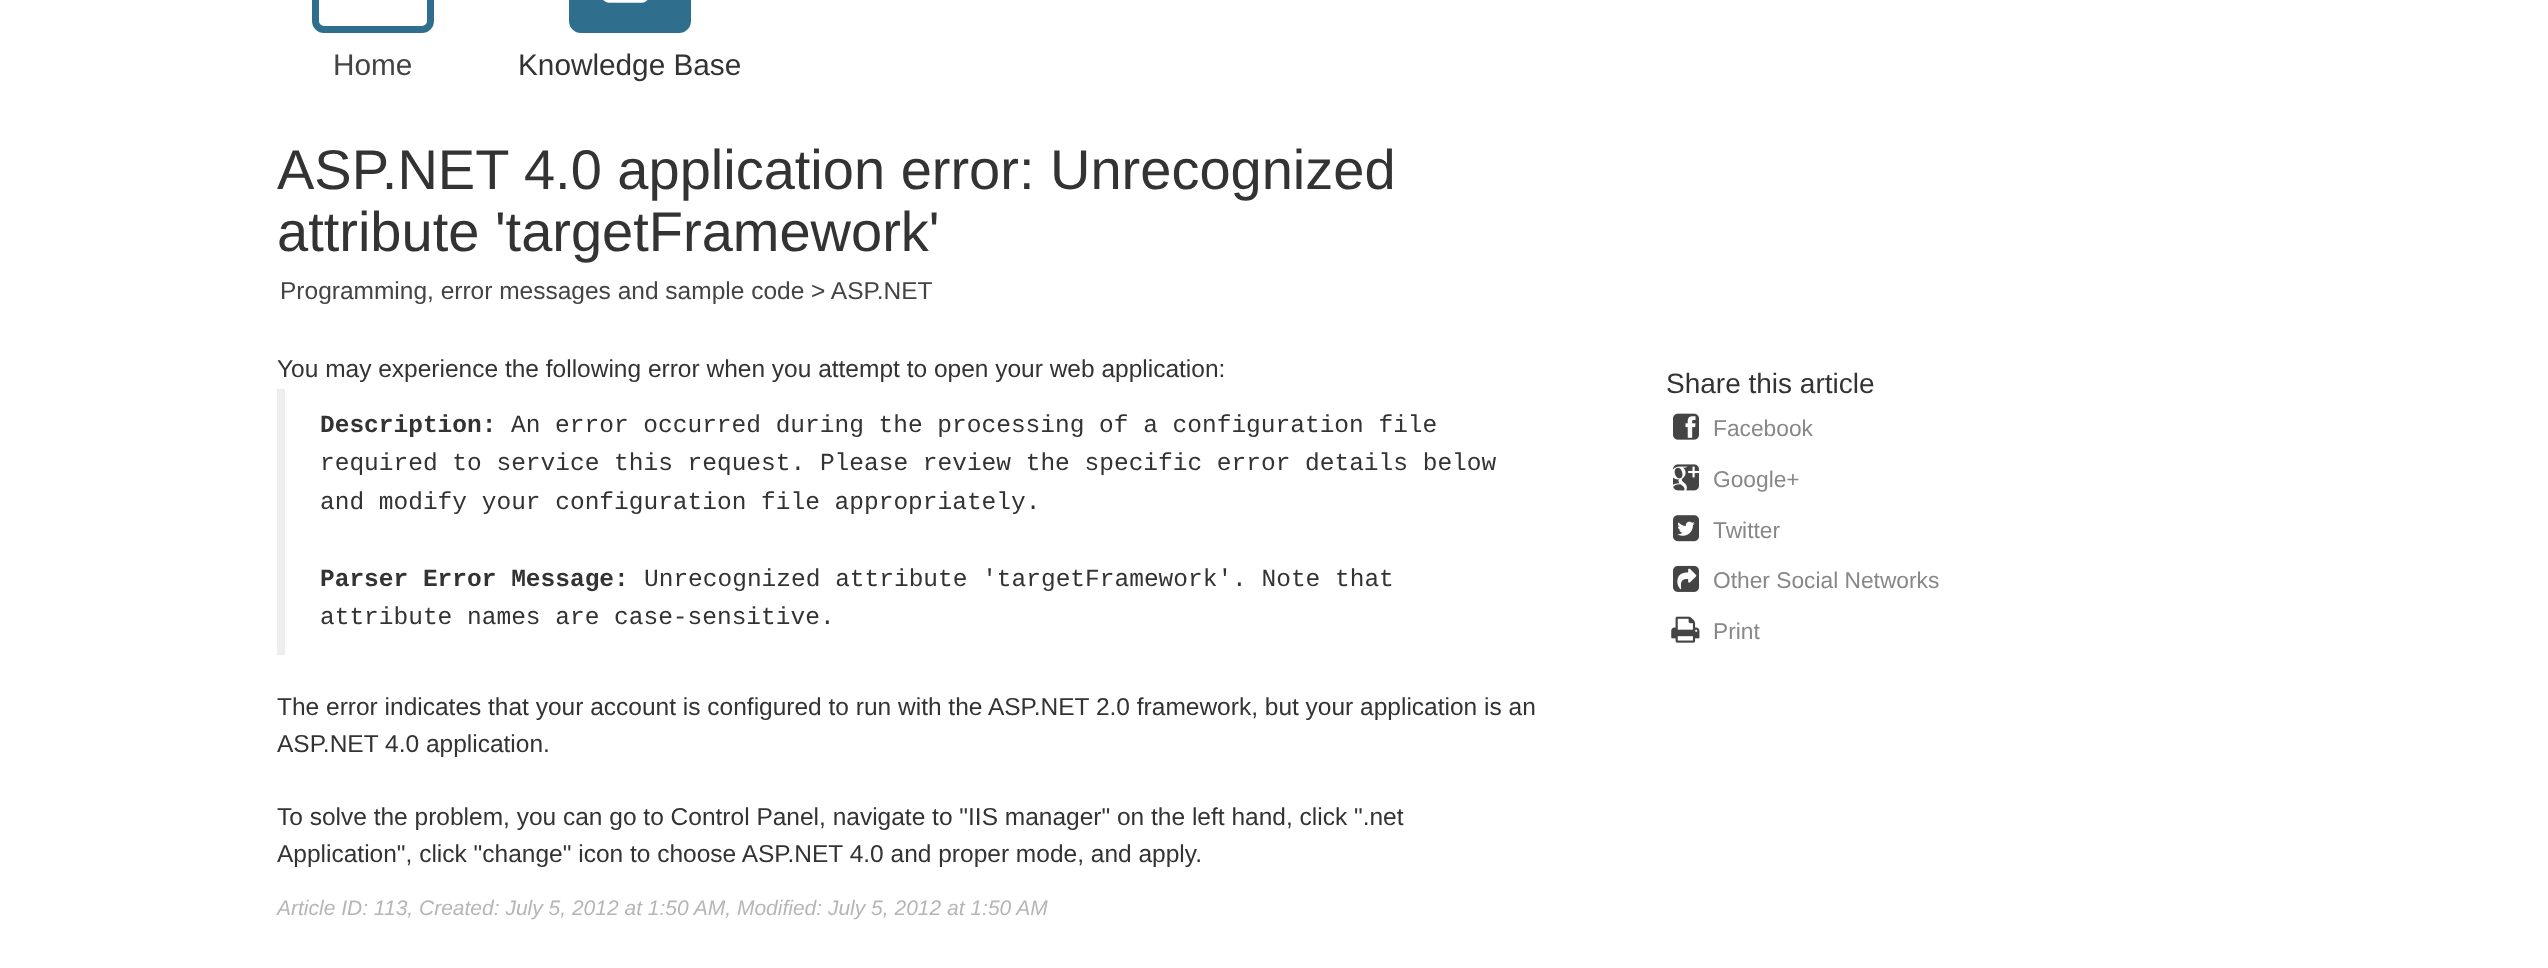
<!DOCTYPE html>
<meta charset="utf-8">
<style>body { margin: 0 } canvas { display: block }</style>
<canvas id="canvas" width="2548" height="968"></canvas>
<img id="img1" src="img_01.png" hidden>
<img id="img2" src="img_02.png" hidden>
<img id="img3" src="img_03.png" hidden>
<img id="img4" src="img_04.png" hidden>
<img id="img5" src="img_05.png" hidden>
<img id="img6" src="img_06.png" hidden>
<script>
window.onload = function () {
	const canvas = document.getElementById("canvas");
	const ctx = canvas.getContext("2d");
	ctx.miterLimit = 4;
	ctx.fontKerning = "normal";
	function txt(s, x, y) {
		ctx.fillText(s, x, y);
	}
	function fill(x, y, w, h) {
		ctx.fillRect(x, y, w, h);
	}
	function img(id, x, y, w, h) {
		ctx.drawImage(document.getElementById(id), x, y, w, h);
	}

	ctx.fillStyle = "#FFFFFF";
	fill(0, 0, 2548, 968);
	ctx.beginPath();
	ctx.roundRect(315.5, -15.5, 115, 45, 8.5);
	ctx.strokeStyle = "#2F6E8D";
	ctx.lineWidth = 7;
	ctx.stroke();
	ctx.fillStyle = "#2F6E8D";
	ctx.beginPath();
	ctx.roundRect(572.5, -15.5, 115, 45, 8.5);
	ctx.fill();
	ctx.stroke();
	img("img1", 603, 0, 45, 3);
	ctx.fillStyle = "#EEEEEE";
	fill(277, 389, 8, 266);
	img("img2", 1673, 413, 26, 27);
	img("img3", 1673, 464, 26, 27);
	img("img4", 1673, 515, 26, 27);
	img("img5", 1673, 565, 26, 27);
	img("img6", 1671, 616, 29, 27);
	ctx.font = "29.75px Liberation Sans";
	ctx.fillStyle = "#444444";
	txt("Home", 333, 75);
	ctx.fillStyle = "#333333";
	txt("Knowledge Base", 518, 75);
	ctx.font = "56px Liberation Sans";
	txt("ASP.NET 4.0 application error: Unrecognized", 277, 189);
	txt("attribute 'targetFramework'", 277, 251);
	ctx.font = "24.5px Liberation Sans";
	ctx.fillStyle = "#444444";
	txt("Programming, error messages and sample code > ASP.NET", 280, 299);
	ctx.fillStyle = "#333333";
	txt("You may experience the following error when you attempt to open your web application:", 277, 377);
	ctx.font = "bold 24.5px Liberation Mono";
	txt("Description:", 320, 432);
	ctx.font = "24.5px Liberation Mono";
	txt("An error occurred during the processing of a configuration file", 511, 432);
	txt("required to service this request. Please review the specific error details below", 320, 470);
	txt("and modify your configuration file appropriately.", 320, 509);
	ctx.font = "bold 24.5px Liberation Mono";
	txt("Parser Error Message:", 320, 586);
	ctx.font = "24.5px Liberation Mono";
	txt("Unrecognized attribute 'targetFramework'. Note that", 644, 586);
	txt("attribute names are case-sensitive.", 320, 624);
	ctx.font = "24.5px Liberation Sans";
	txt("The error indicates that your account is configured to run with the ASP.NET 2.0 framework, but your application is an", 277, 715);
	txt("ASP.NET 4.0 application.", 277, 752);
	txt("To solve the problem, you can go to Control Panel, navigate to \"IIS manager\" on the left hand, click \".net", 277, 825);
	txt("Application\", click \"change\" icon to choose ASP.NET 4.0 and proper mode, and apply.", 277, 862);
	ctx.font = "italic 21px Liberation Sans";
	ctx.fillStyle = "#B6B6B6";
	txt("Article ID: 113, Created: July 5, 2012 at 1:50 AM, Modified: July 5, 2012 at 1:50 AM", 277, 915);
	ctx.font = "28px Liberation Sans";
	ctx.fillStyle = "#333333";
	txt("Share this article", 1666, 393);
	ctx.font = "22.75px Liberation Sans";
	ctx.fillStyle = "#888888";
	txt("Facebook", 1713, 436);
	txt("Google+", 1713, 487);
	txt("Twitter", 1713, 538);
	txt("Other Social Networks", 1713, 588);
	txt("Print", 1713, 639);
};
</script>
